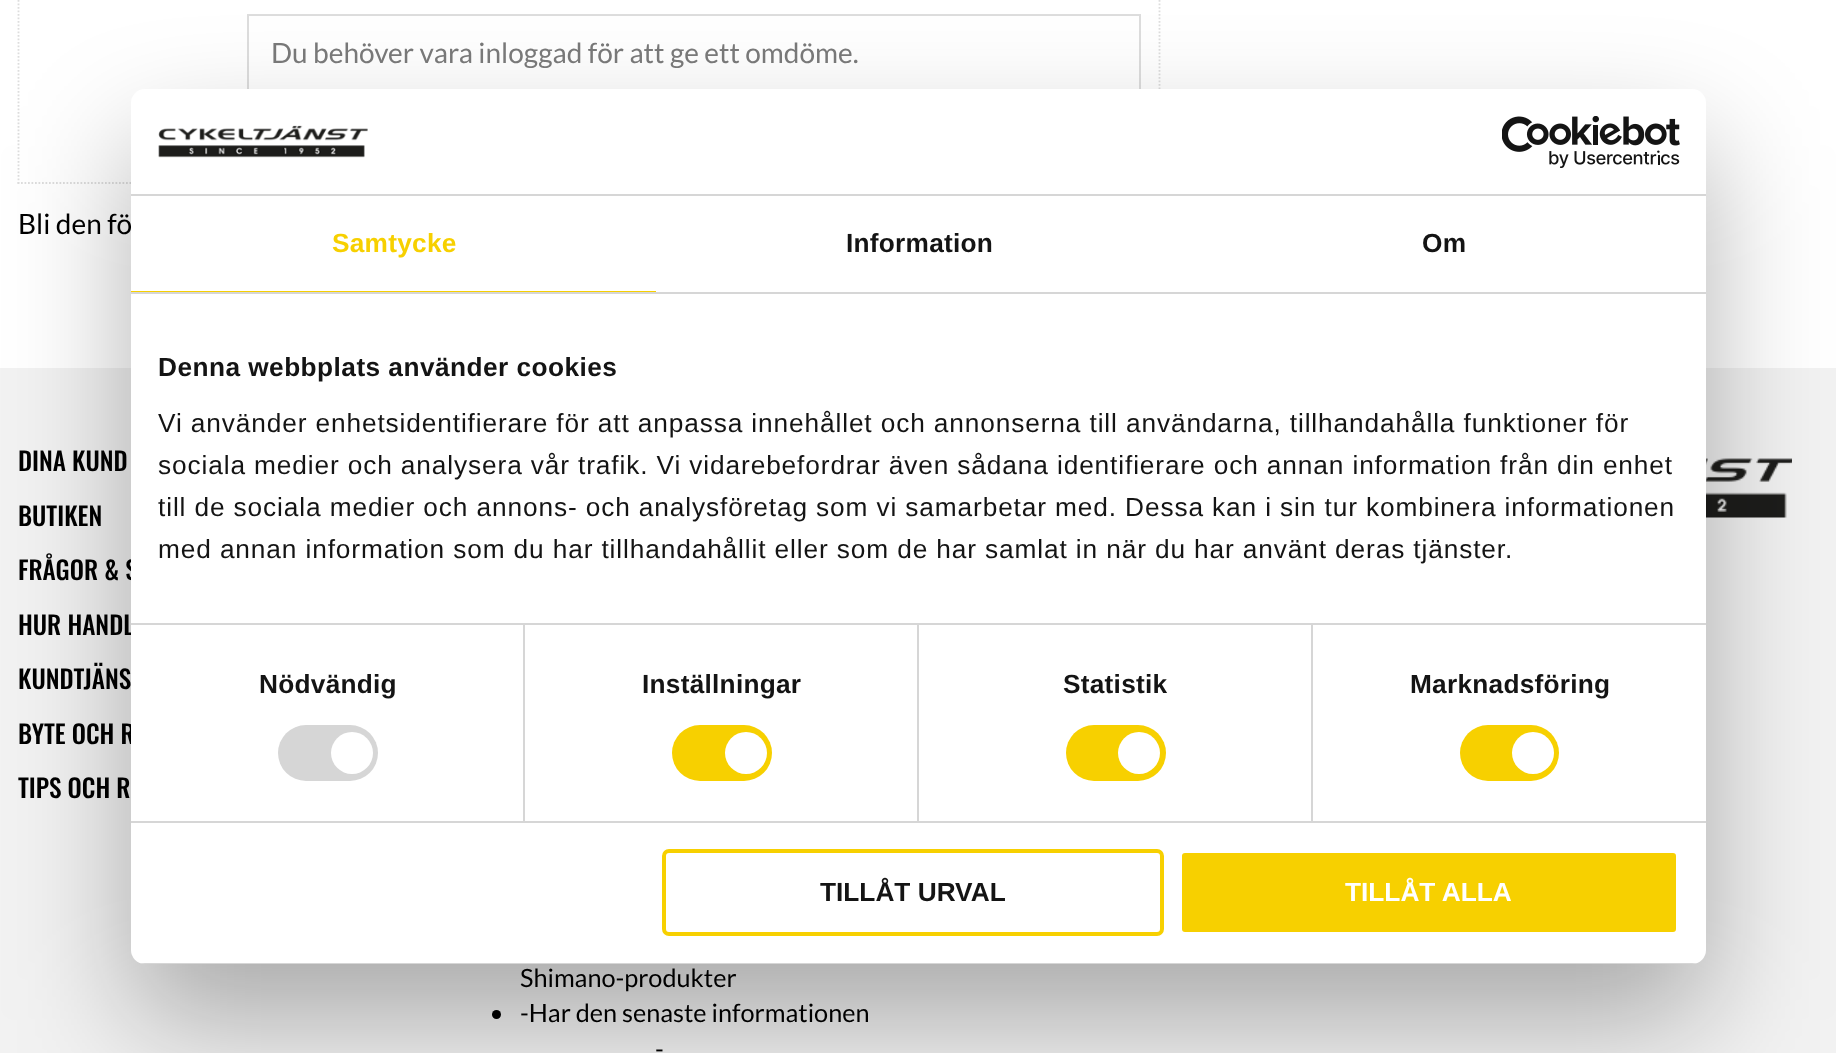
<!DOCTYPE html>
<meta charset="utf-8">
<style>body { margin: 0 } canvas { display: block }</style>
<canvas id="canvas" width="1836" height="1053"></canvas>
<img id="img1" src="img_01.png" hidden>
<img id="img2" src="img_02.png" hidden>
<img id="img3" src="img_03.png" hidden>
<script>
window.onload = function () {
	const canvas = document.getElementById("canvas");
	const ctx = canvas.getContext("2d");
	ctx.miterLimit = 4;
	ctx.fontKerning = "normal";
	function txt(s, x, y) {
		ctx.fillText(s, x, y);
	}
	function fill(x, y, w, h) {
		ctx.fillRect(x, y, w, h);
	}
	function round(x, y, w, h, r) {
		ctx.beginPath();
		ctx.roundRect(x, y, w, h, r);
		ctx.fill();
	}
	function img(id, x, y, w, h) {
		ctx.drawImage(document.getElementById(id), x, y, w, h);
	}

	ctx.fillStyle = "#FFFFFF";
	fill(0, 0, 1836, 1053);
	ctx.beginPath();
	ctx.moveTo(1159.5, -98);
	ctx.lineTo(1159.5, 184);
	ctx.strokeStyle = "#DDDDDD";
	ctx.lineWidth = 1.8;
	ctx.setLineDash([1.75, 1.75]);
	ctx.stroke();
	ctx.beginPath();
	ctx.moveTo(17.5, 183);
	ctx.lineTo(1160, 183);
	ctx.stroke();
	ctx.beginPath();
	ctx.moveTo(18.5, -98);
	ctx.lineTo(18.5, 184);
	ctx.stroke();
	ctx.lineWidth = 2;
	ctx.setLineDash([]);
	ctx.strokeRect(248, 15, 892, 114);
	ctx.fillStyle = "#F2F2F2";
	fill(0, 368, 1836, 685);
	img("img1", 1706, 458, 86, 60);
	ctx.fillStyle = "#000000";
	ctx.beginPath();
	ctx.arc(496.5, 1014.5, 4.5, 0, Math.PI * 2);
	ctx.fill();
	ctx.fillStyle = "rgba(0, 0, 0, 0.3)";
	ctx.filter = "blur(59.5px)";
	ctx.beginPath();
	ctx.roundRect(131, 145, 1575, 875, 14);
	ctx.fill();
	ctx.filter = "none";
	ctx.font = "28px Lato";
	ctx.fillStyle = "#787878";
	txt("Du behöver vara inloggad för att ge ett omdöme.", 271, 63);
	ctx.fillStyle = "#000000";
	txt("Bli den fö", 18, 234);
	ctx.font = "500 25.25px Oswald";
	txt("DINA KUND", 18, 471);
	txt("BUTIKEN", 18, 526);
	txt("FRÅGOR & S", 18, 580);
	txt("HUR HANDL", 18, 635);
	txt("KUNDTJÄNS", 18, 689);
	txt("BYTE OCH R", 18, 744);
	ctx.save();
	ctx.beginPath();
	ctx.rect(18, 765, 432, 45);
	ctx.clip();
	txt("TIPS OCH R", 18, 798);
	ctx.restore();
	ctx.font = "25.25px Lato";
	txt("Shimano-produkter", 520, 987);
	txt("-Har den senaste informationen", 520, 1022);
	txt("-", 655, 1058);
	ctx.fillStyle = "#FFFFFF";
	round(131, 89, 1575, 875, 14);
	ctx.fillStyle = "#D6D6D6";
	fill(131, 194, 1575, 2);
	img("img2", 158, 125, 210, 33);
	img("img3", 1502, 116, 178, 52);
	fill(131, 292, 1575, 2);
	ctx.fillStyle = "#F7D000";
	fill(131, 291, 525, 1);
	ctx.letterSpacing = "0.25px";
	ctx.font = "bold 26.25px Liberation Sans";
	txt("Samtycke", 332, 252);
	ctx.fillStyle = "#141414";
	txt("Information", 846, 252);
	txt("Om", 1422, 252);
	ctx.fillStyle = "#D6D6D6";
	fill(131, 623, 1575, 2);
	ctx.letterSpacing = "0.45px";
	ctx.fillStyle = "#141414";
	txt("Denna webbplats använder cookies", 158, 376);
	ctx.letterSpacing = "0.88px";
	ctx.font = "26.25px Liberation Sans";
	txt("Vi använder enhetsidentifierare för att anpassa innehållet och annonserna till användarna, tillhandahålla funktioner för", 158, 432);
	txt("sociala medier och analysera vår trafik. Vi vidarebefordrar även sådana identifierare och annan information från din enhet", 158, 474);
	txt("till de sociala medier och annons- och analysföretag som vi samarbetar med. Dessa kan i sin tur kombinera informationen", 158, 516);
	txt("med annan information som du har tillhandahållit eller som de har samlat in när du har använt deras tjänster.", 158, 558);
	ctx.fillStyle = "#D6D6D6";
	fill(131, 821, 1575, 2);
	fill(523, 625, 2, 196);
	ctx.letterSpacing = "0.25px";
	ctx.font = "bold 26.25px Liberation Sans";
	ctx.fillStyle = "#141414";
	txt("Nödvändig", 259, 693);
	ctx.fillStyle = "#D6D6D6";
	round(278, 725, 100, 56, 28);
	ctx.fillStyle = "#FFFFFF";
	ctx.beginPath();
	ctx.arc(352, 753, 21, 0, Math.PI * 2);
	ctx.fill();
	ctx.fillStyle = "#D6D6D6";
	fill(917, 625, 2, 196);
	ctx.fillStyle = "#141414";
	txt("Inställningar", 642, 693);
	ctx.fillStyle = "#F7D000";
	round(672, 725, 100, 56, 28);
	ctx.fillStyle = "#FFFFFF";
	ctx.beginPath();
	ctx.arc(746, 753, 21, 0, Math.PI * 2);
	ctx.fill();
	ctx.fillStyle = "#D6D6D6";
	fill(1311, 625, 2, 196);
	ctx.fillStyle = "#141414";
	txt("Statistik", 1063, 693);
	ctx.fillStyle = "#F7D000";
	round(1066, 725, 100, 56, 28);
	ctx.fillStyle = "#FFFFFF";
	ctx.beginPath();
	ctx.arc(1139, 753, 21, 0, Math.PI * 2);
	ctx.fill();
	ctx.fillStyle = "#141414";
	txt("Marknadsföring", 1410, 693);
	ctx.fillStyle = "#F7D000";
	round(1460, 725, 99, 56, 28);
	ctx.fillStyle = "#FFFFFF";
	ctx.beginPath();
	ctx.arc(1533, 753, 21, 0, Math.PI * 2);
	ctx.fill();
	ctx.save();
	ctx.beginPath();
	ctx.roundRect(131, 89, 1575, 875, 14);
	ctx.clip();
	ctx.fillStyle = "#D6D6D6";
	fill(140, 963, 1557, 1);
	ctx.restore();
	ctx.beginPath();
	ctx.roundRect(664, 851, 498, 83, 5);
	ctx.strokeStyle = "#F7D000";
	ctx.lineWidth = 4;
	ctx.stroke();
	ctx.letterSpacing = "0px";
	ctx.fillStyle = "#141414";
	txt("TILLÅT URVAL", 820, 901);
	ctx.fillStyle = "#F7D000";
	ctx.beginPath();
	ctx.roundRect(1180, 851, 498, 83, 5);
	ctx.fill();
	ctx.strokeStyle = "#FFFFFF";
	ctx.stroke();
	ctx.fillStyle = "#FFFFFF";
	txt("TILLÅT ALLA", 1345, 901);
};
</script>
